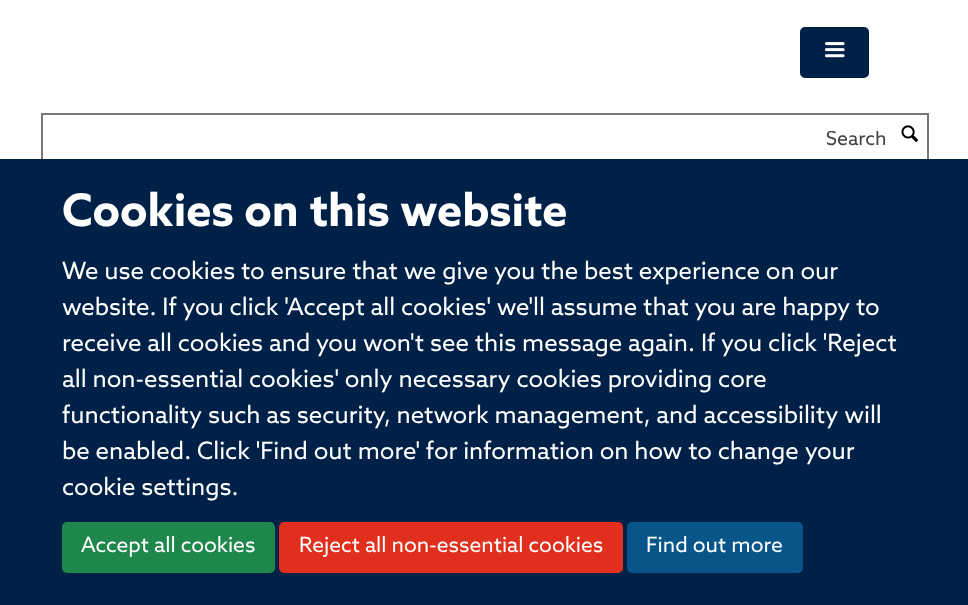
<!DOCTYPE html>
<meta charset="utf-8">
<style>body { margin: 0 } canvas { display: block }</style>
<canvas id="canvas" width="968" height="605"></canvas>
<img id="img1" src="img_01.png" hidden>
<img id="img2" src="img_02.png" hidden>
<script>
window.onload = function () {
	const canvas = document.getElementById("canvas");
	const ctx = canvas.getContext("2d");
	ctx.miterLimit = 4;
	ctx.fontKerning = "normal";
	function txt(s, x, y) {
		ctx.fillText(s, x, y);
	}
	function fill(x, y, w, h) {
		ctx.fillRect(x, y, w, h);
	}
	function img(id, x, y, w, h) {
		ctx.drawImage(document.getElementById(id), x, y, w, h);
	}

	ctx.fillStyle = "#FFFFFF";
	fill(0, 0, 968, 605);
	ctx.fillStyle = "#002147";
	ctx.beginPath();
	ctx.roundRect(801, 28, 67, 49, 4);
	ctx.fill();
	ctx.strokeStyle = "#002147";
	ctx.lineWidth = 2;
	ctx.stroke();
	img("img1", 824, 42, 21, 16);
	ctx.strokeStyle = "#777777";
	ctx.strokeRect(42, 114, 886, 47);
	img("img2", 901, 125, 17, 17);
	fill(0, 159, 968, 446);
	ctx.fillStyle = "#1E874B";
	ctx.beginPath();
	ctx.roundRect(63, 523, 211, 49, 4);
	ctx.fill();
	ctx.strokeStyle = "#1E874B";
	ctx.stroke();
	ctx.fillStyle = "#E22E1C";
	ctx.beginPath();
	ctx.roundRect(280, 523, 342, 49, 4);
	ctx.fill();
	ctx.strokeStyle = "#E22E1C";
	ctx.stroke();
	ctx.fillStyle = "#085589";
	ctx.beginPath();
	ctx.roundRect(628, 523, 174, 49, 4);
	ctx.fill();
	ctx.strokeStyle = "#085589";
	ctx.stroke();
	ctx.save();
	ctx.beginPath();
	ctx.rect(51, 131, 836, 19);
	ctx.clip();
	ctx.font = "19.5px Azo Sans";
	ctx.fillStyle = "#444444";
	txt("Search", 826, 145);
	ctx.restore();
	ctx.font = "bold 45px Azo Sans";
	ctx.fillStyle = "#FFFFFF";
	txt("Cookies on this website", 62, 226);
	ctx.font = "24px Azo Sans";
	txt("We use cookies to ensure that we give you the best experience on our", 62, 279);
	txt("website. If you click 'Accept all cookies' we'll assume that you are happy to", 62, 315);
	txt("receive all cookies and you won't see this message again. If you click 'Reject", 62, 351);
	txt("all non-essential cookies' only necessary cookies providing core", 62, 387);
	txt("functionality such as security, network management, and accessibility will", 62, 423);
	txt("be enabled. Click 'Find out more' for information on how to change your", 62, 459);
	txt("cookie settings.", 62, 495);
	ctx.font = "21px Azo Sans";
	txt("Accept all cookies", 81, 552);
	txt("Reject all non-essential cookies", 299, 552);
	txt("Find out more", 646, 552);
};
</script>
